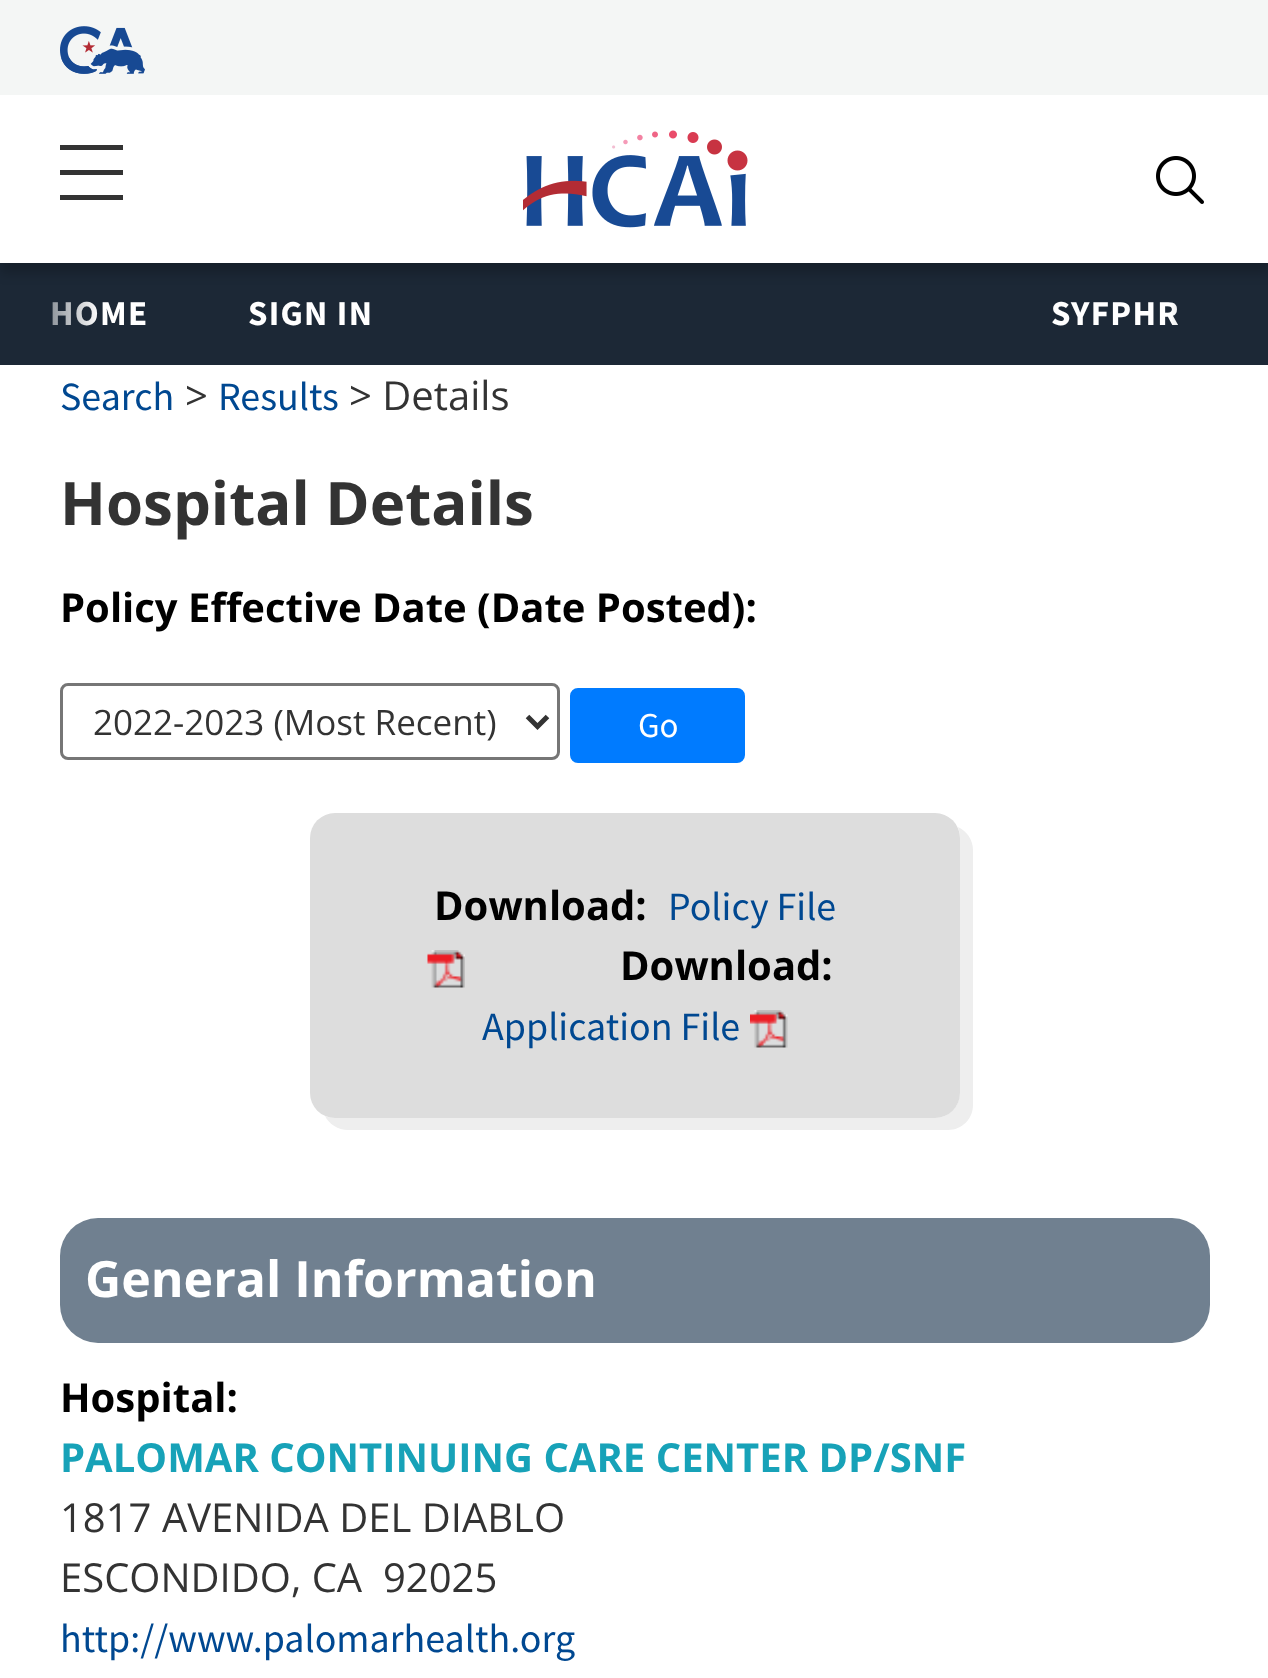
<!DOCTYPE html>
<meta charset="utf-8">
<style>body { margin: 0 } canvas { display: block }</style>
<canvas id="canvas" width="1268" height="1678"></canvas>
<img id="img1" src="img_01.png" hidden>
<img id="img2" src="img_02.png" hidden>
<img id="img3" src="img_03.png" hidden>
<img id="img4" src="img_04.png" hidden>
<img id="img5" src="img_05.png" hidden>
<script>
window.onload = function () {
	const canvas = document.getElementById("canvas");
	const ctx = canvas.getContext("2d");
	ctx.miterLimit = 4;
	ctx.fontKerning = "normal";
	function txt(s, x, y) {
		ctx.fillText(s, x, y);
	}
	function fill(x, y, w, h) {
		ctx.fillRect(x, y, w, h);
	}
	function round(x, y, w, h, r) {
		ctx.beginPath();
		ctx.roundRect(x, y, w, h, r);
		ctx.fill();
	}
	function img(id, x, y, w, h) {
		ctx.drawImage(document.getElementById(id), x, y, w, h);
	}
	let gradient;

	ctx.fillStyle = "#FFFFFF";
	fill(0, 0, 1268, 1678);
	ctx.fillStyle = "#1C2836";
	fill(0, 263, 1268, 102);
	ctx.save();
	ctx.beginPath();
	ctx.moveTo(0, 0);
	ctx.lineTo(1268, 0);
	ctx.lineTo(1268, 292);
	ctx.lineTo(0, 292);
	ctx.closePath();
	ctx.moveTo(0, 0);
	ctx.lineTo(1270, 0);
	ctx.lineTo(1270, 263);
	ctx.lineTo(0, 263);
	ctx.closePath();
	ctx.clip("evenodd");
	ctx.fillStyle = "rgba(0, 0, 0, 0.2)";
	ctx.filter = "blur(6px)";
	ctx.beginPath();
	ctx.rect(0, 10, 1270, 263);
	ctx.fill();
	ctx.filter = "none";
	ctx.restore();
	ctx.fillStyle = "#F4F6F5";
	fill(0, 0, 1268, 95);
	img("img1", 60, 26, 85, 48);
	ctx.fillStyle = "#333333";
	fill(60, 170, 63, 5);
	fill(60, 145, 63, 5);
	fill(60, 195, 63, 5);
	img("img2", 523, 130, 225, 98);
	img("img3", 1156, 156, 48, 48);
	ctx.beginPath();
	ctx.roundRect(61.5, 684.5, 497, 74, 6.5);
	ctx.strokeStyle = "#767676";
	ctx.lineWidth = 3;
	ctx.stroke();
	ctx.beginPath();
	ctx.moveTo(527.5, 716.5);
	ctx.lineTo(537.5, 726.5);
	ctx.lineTo(547.5, 716.5);
	ctx.strokeStyle = "#333333";
	ctx.lineWidth = 5;
	ctx.stroke();
	ctx.fillStyle = "#007BFF";
	ctx.beginPath();
	ctx.roundRect(571.5, 689.5, 172, 72, 6.5);
	ctx.fill();
	ctx.strokeStyle = "#007BFF";
	ctx.lineWidth = 3;
	ctx.stroke();
	ctx.fillStyle = "#EEEEEE";
	ctx.beginPath();
	ctx.moveTo(325, 1116);
	ctx.bezierCurveTo(329, 1124, 338, 1130, 348, 1130);
	ctx.lineTo(948, 1130);
	ctx.bezierCurveTo(962, 1130, 973, 1119, 973, 1105);
	ctx.lineTo(973, 850);
	ctx.bezierCurveTo(973, 840, 967, 831, 958, 827);
	ctx.bezierCurveTo(959, 830, 960, 834, 960, 838);
	ctx.lineTo(960, 1092);
	ctx.bezierCurveTo(960, 1106, 949, 1118, 935, 1118);
	ctx.lineTo(335, 1118);
	ctx.bezierCurveTo(332, 1118, 328, 1117, 325, 1116);
	ctx.closePath();
	ctx.fill();
	ctx.fillStyle = "#DDDDDD";
	round(310, 813, 650, 305, 25);
	img("img4", 427, 950, 38, 38);
	img("img5", 750, 1010, 38, 38);
	ctx.fillStyle = "#708090";
	round(60, 1218, 1150, 125, 38);
	ctx.letterSpacing = "1.25px";
	ctx.font = "bold 35px Source Sans Pro";
	ctx.fillStyle = "#FFFFFF";
	txt("HOME", 50, 325);
	txt("SIGN IN", 248, 325);
	txt("SYFPHR", 1051, 325);
	gradient = ctx.createLinearGradient(0, 310, 100, 310);
	gradient.addColorStop(0, "#1C2836");
	gradient.addColorStop(1, "rgba(28, 40, 54, 0)");
	ctx.fillStyle = gradient;
	fill(52, 301, 45, 25);
	gradient = ctx.createLinearGradient(1170, 310, 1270, 310);
	gradient.addColorStop(0, "rgba(28, 40, 54, 0)");
	gradient.addColorStop(1, "#1C2836");
	ctx.fillStyle = gradient;
	fill(1172, 303, 6, 22);
	ctx.letterSpacing = "0px";
	ctx.font = "40px Source Sans Pro";
	ctx.fillStyle = "#004891";
	txt("Search", 60, 410);
	ctx.font = "40px Open Sans";
	ctx.fillStyle = "#333333";
	txt(">", 185, 410);
	ctx.font = "40px Source Sans Pro";
	ctx.fillStyle = "#004891";
	txt("Results", 218, 410);
	ctx.font = "40px Open Sans";
	ctx.fillStyle = "#333333";
	txt("> Details", 349, 410);
	ctx.font = "bold 60px Open Sans";
	txt("Hospital Details", 60, 525);
	ctx.font = "bold 40px Open Sans";
	ctx.fillStyle = "#000000";
	txt("Policy Effective Date (Date Posted):", 60, 622);
	ctx.font = "35px Open Sans";
	ctx.fillStyle = "#333333";
	txt("2022-2023 (Most Recent)", 93, 735);
	ctx.font = "35px Source Sans Pro";
	ctx.fillStyle = "#FFFFFF";
	txt("Go", 638, 737);
	ctx.font = "bold 40px Open Sans";
	ctx.fillStyle = "#000000";
	txt("Download:", 434, 920);
	ctx.font = "40px Source Sans Pro";
	ctx.fillStyle = "#004891";
	txt("Policy File", 668, 920);
	ctx.font = "bold 40px Open Sans";
	ctx.fillStyle = "#000000";
	txt("Download:", 620, 980);
	ctx.font = "40px Source Sans Pro";
	ctx.fillStyle = "#004891";
	txt("Application File", 482, 1040);
	ctx.font = "bold 50px Open Sans";
	ctx.fillStyle = "#FFFFFF";
	txt("General Information", 85, 1297);
	ctx.font = "bold 40px Open Sans";
	ctx.fillStyle = "#000000";
	txt("Hospital:", 60, 1412);
	ctx.fillStyle = "#17A2B8";
	txt("PALOMAR CONTINUING CARE CENTER DP/SNF", 60, 1472);
	ctx.font = "40px Open Sans";
	ctx.fillStyle = "#333333";
	txt("1817 AVENIDA DEL DIABLO", 60, 1532);
	txt("ESCONDIDO, CA  92025", 60, 1592);
	ctx.font = "40px Source Sans Pro";
	ctx.fillStyle = "#004891";
	txt("http://www.palomarhealth.org", 60, 1652);
};
</script>
